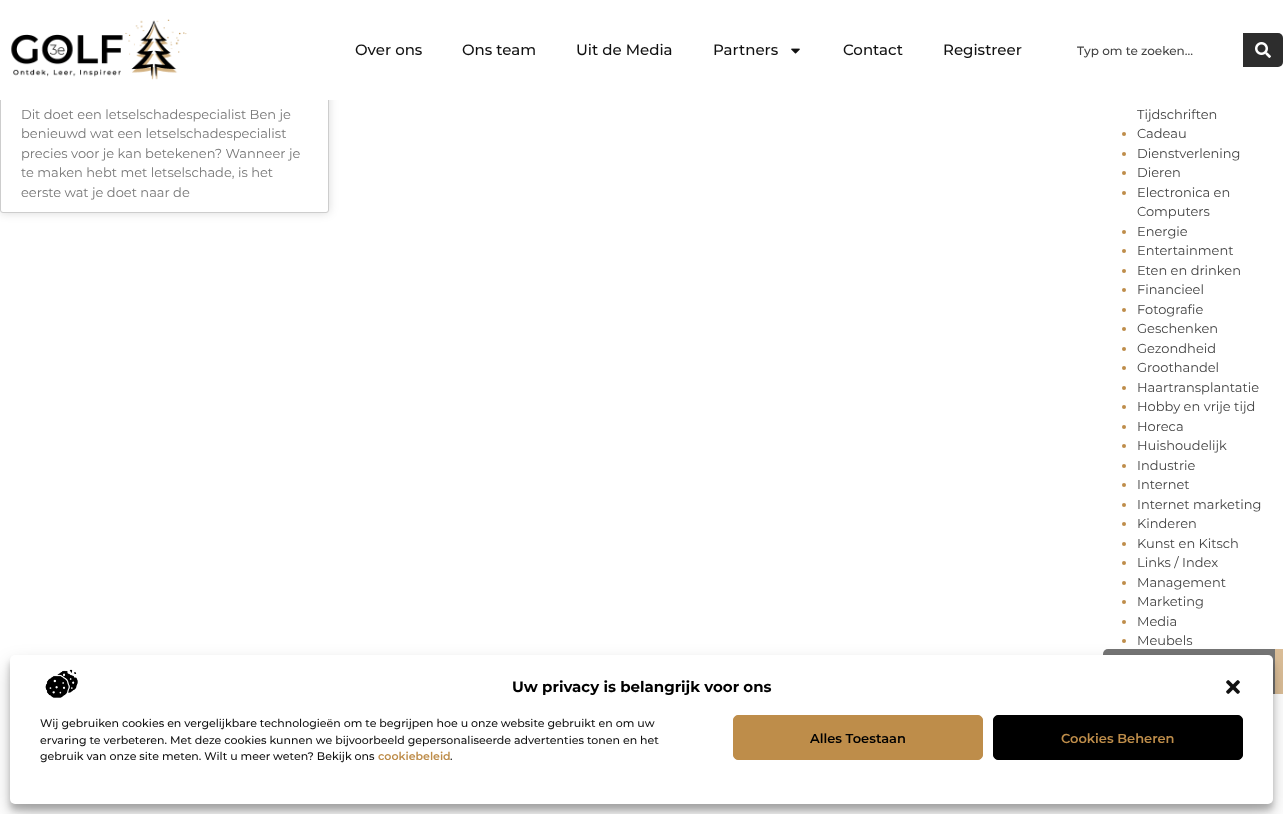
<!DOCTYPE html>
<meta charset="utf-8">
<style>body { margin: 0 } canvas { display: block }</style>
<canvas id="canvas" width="1283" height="814"></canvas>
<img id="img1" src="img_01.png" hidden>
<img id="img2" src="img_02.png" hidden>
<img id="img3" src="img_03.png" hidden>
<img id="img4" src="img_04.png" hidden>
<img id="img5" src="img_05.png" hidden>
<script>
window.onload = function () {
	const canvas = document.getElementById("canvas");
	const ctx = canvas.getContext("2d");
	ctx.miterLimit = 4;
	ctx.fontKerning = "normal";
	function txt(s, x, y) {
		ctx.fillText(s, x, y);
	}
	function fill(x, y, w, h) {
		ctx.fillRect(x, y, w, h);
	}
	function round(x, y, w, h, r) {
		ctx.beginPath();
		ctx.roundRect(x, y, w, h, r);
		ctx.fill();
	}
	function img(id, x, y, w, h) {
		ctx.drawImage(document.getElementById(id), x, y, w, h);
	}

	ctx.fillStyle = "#FFFFFF";
	fill(0, 0, 1283, 814);
	ctx.fillStyle = "rgba(0, 0, 0, 0.15)";
	ctx.filter = "blur(5px)";
	ctx.beginPath();
	ctx.roundRect(0, -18, 329, 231, 3);
	ctx.fill();
	ctx.filter = "none";
	ctx.fillStyle = "#FFFFFF";
	ctx.beginPath();
	ctx.roundRect(0.5, -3.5, 328, 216, 2.5);
	ctx.fill();
	ctx.strokeStyle = "#CDCDCD";
	ctx.stroke();
	ctx.fillStyle = "rgba(0, 0, 0, 0.33)";
	ctx.filter = "blur(0.5px)";
	ctx.beginPath();
	ctx.rect(0, 0, 1283, 100);
	ctx.fill();
	ctx.filter = "none";
	ctx.fillStyle = "#FFFFFF";
	fill(0, 0, 1283, 100);
	img("img1", 11, 19, 176, 61);
	img("img2", 791, 48, 9, 6);
	ctx.fillStyle = "#2D2D2D";
	ctx.beginPath();
	ctx.roundRect(1243, 33, 40, 34, [0, 5, 5, 0]);
	ctx.fill();
	ctx.save();
	ctx.beginPath();
	ctx.moveTo(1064, 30);
	ctx.lineTo(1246, 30);
	ctx.lineTo(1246, 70);
	ctx.lineTo(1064, 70);
	ctx.closePath();
	ctx.moveTo(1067, 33);
	ctx.lineTo(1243, 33);
	ctx.lineTo(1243, 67);
	ctx.lineTo(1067, 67);
	ctx.closePath();
	ctx.clip("evenodd");
	ctx.fillStyle = "rgba(0, 0, 0, 0.5)";
	ctx.filter = "blur(0.5px)";
	ctx.beginPath();
	ctx.rect(1067, 33, 176, 34);
	ctx.fill();
	ctx.filter = "none";
	ctx.restore();
	img("img3", 1255, 42, 16, 16);
	ctx.fillStyle = "rgba(17, 17, 17, 0.58)";
	ctx.beginPath();
	ctx.roundRect(1103, 649, 172, 45, [5, 0, 0, 5]);
	ctx.fill();
	ctx.fillStyle = "#DABD97";
	fill(1275, 649, 8, 45);
	ctx.fillStyle = "#BE8D4A";
	ctx.beginPath();
	ctx.arc(1124, 134, 2, 0, Math.PI * 2);
	ctx.fill();
	ctx.beginPath();
	ctx.arc(1124, 154, 2, 0, Math.PI * 2);
	ctx.fill();
	ctx.beginPath();
	ctx.arc(1124, 173, 2, 0, Math.PI * 2);
	ctx.fill();
	ctx.beginPath();
	ctx.arc(1124, 193, 2, 0, Math.PI * 2);
	ctx.fill();
	ctx.beginPath();
	ctx.arc(1124, 232, 2, 0, Math.PI * 2);
	ctx.fill();
	ctx.beginPath();
	ctx.arc(1124, 251, 2, 0, Math.PI * 2);
	ctx.fill();
	ctx.beginPath();
	ctx.arc(1124, 271, 2, 0, Math.PI * 2);
	ctx.fill();
	ctx.beginPath();
	ctx.arc(1124, 290, 2, 0, Math.PI * 2);
	ctx.fill();
	ctx.beginPath();
	ctx.arc(1124, 310, 2, 0, Math.PI * 2);
	ctx.fill();
	ctx.beginPath();
	ctx.arc(1124, 329, 2, 0, Math.PI * 2);
	ctx.fill();
	ctx.beginPath();
	ctx.arc(1124, 349, 2, 0, Math.PI * 2);
	ctx.fill();
	ctx.beginPath();
	ctx.arc(1124, 368, 2, 0, Math.PI * 2);
	ctx.fill();
	ctx.beginPath();
	ctx.arc(1124, 388, 2, 0, Math.PI * 2);
	ctx.fill();
	ctx.beginPath();
	ctx.arc(1124, 407, 2, 0, Math.PI * 2);
	ctx.fill();
	ctx.beginPath();
	ctx.arc(1124, 427, 2, 0, Math.PI * 2);
	ctx.fill();
	ctx.beginPath();
	ctx.arc(1124, 446, 2, 0, Math.PI * 2);
	ctx.fill();
	ctx.beginPath();
	ctx.arc(1124, 466, 2, 0, Math.PI * 2);
	ctx.fill();
	ctx.beginPath();
	ctx.arc(1124, 485, 2, 0, Math.PI * 2);
	ctx.fill();
	ctx.beginPath();
	ctx.arc(1124, 505, 2, 0, Math.PI * 2);
	ctx.fill();
	ctx.beginPath();
	ctx.arc(1124, 524, 2, 0, Math.PI * 2);
	ctx.fill();
	ctx.beginPath();
	ctx.arc(1124, 544, 2, 0, Math.PI * 2);
	ctx.fill();
	ctx.beginPath();
	ctx.arc(1124, 563, 2, 0, Math.PI * 2);
	ctx.fill();
	ctx.beginPath();
	ctx.arc(1124, 583, 2, 0, Math.PI * 2);
	ctx.fill();
	ctx.beginPath();
	ctx.arc(1124, 602, 2, 0, Math.PI * 2);
	ctx.fill();
	ctx.beginPath();
	ctx.arc(1124, 622, 2, 0, Math.PI * 2);
	ctx.fill();
	ctx.beginPath();
	ctx.arc(1124, 641, 2, 0, Math.PI * 2);
	ctx.fill();
	ctx.fillStyle = "rgba(0, 0, 0, 0.23)";
	ctx.filter = "blur(3px)";
	ctx.beginPath();
	ctx.roundRect(10, 661, 1263, 149, 5);
	ctx.fill();
	ctx.filter = "none";
	ctx.fillStyle = "rgba(0, 0, 0, 0.19)";
	ctx.filter = "blur(10px)";
	ctx.beginPath();
	ctx.roundRect(10, 665, 1263, 149, 5);
	ctx.fill();
	ctx.filter = "none";
	ctx.fillStyle = "#FFFFFF";
	round(10, 655, 1263, 149, 5);
	img("img4", 45, 669, 33, 29);
	img("img5", 1226, 680, 14, 14);
	ctx.fillStyle = "#BE8D4A";
	ctx.beginPath();
	ctx.roundRect(733.5, 715.5, 249, 44, 4.5);
	ctx.fill();
	ctx.strokeStyle = "#BE8D4A";
	ctx.stroke();
	ctx.fillStyle = "#000000";
	ctx.beginPath();
	ctx.roundRect(993.5, 715.5, 249, 44, 4.5);
	ctx.fill();
	ctx.strokeStyle = "#000000";
	ctx.stroke();
	ctx.font = "500 15px Montserrat";
	ctx.fillStyle = "#111111";
	txt("Over ons", 355, 55);
	txt("Ons team", 462, 55);
	txt("Uit de Media", 576, 55);
	txt("Partners", 713, 55);
	txt("Contact", 843, 55);
	txt("Registreer", 943, 55);
	ctx.font = "500 12px Montserrat";
	ctx.fillStyle = "#444444";
	txt("Typ om te zoeken…", 1077, 55);
	ctx.font = "13px Montserrat";
	ctx.fillStyle = "#777777";
	txt("Dit doet een letselschadespecialist Ben je", 21, 119);
	txt("benieuwd wat een letselschadespecialist", 21, 138);
	txt("precies voor je kan betekenen? Wanneer je", 21, 158);
	txt("te maken hebt met letselschade, is het", 21, 177);
	txt("eerste wat je doet naar de", 21, 197);
	ctx.fillStyle = "#444444";
	txt("Tijdschriften", 1137, 119);
	txt("Cadeau", 1137, 138);
	txt("Dienstverlening", 1137, 158);
	txt("Dieren", 1137, 177);
	txt("Electronica en", 1137, 197);
	txt("Computers", 1137, 216);
	txt("Energie", 1137, 236);
	txt("Entertainment", 1137, 255);
	txt("Eten en drinken", 1137, 275);
	txt("Financieel", 1137, 294);
	txt("Fotografie", 1137, 314);
	txt("Geschenken", 1137, 333);
	txt("Gezondheid", 1137, 353);
	txt("Groothandel", 1137, 372);
	txt("Haartransplantatie", 1137, 392);
	txt("Hobby en vrije tijd", 1137, 411);
	txt("Horeca", 1137, 431);
	txt("Huishoudelijk", 1137, 450);
	txt("Industrie", 1137, 470);
	txt("Internet", 1137, 489);
	txt("Internet marketing", 1137, 509);
	txt("Kinderen", 1137, 528);
	txt("Kunst en Kitsch", 1137, 548);
	txt("Links / Index", 1137, 567);
	txt("Management", 1137, 587);
	txt("Marketing", 1137, 606);
	txt("Media", 1137, 626);
	txt("Meubels", 1137, 645);
	ctx.font = "bold 15px Montserrat";
	ctx.fillStyle = "#000000";
	txt("Uw privacy is belangrijk voor ons", 512, 692);
	ctx.font = "500 11px Montserrat";
	ctx.fillStyle = "#111111";
	txt("Wij gebruiken cookies en vergelijkbare technologieën om te begrijpen hoe u onze website gebruikt en om uw", 40, 727);
	txt("ervaring te verbeteren. Met deze cookies kunnen we bijvoorbeeld gepersonaliseerde advertenties tonen en het", 40, 744);
	txt("gebruik van onze site meten. Wilt u meer weten? Bekijk ons", 40, 760);
	ctx.font = "600 11px Montserrat";
	ctx.fillStyle = "#BE8D4A";
	txt("cookiebeleid", 378, 760);
	ctx.font = "500 11px Montserrat";
	ctx.fillStyle = "#111111";
	txt(".", 450, 760);
	ctx.font = "600 13px Montserrat";
	ctx.fillStyle = "#000000";
	txt("Alles Toestaan", 810, 743);
	ctx.fillStyle = "#BE8D4A";
	txt("Cookies Beheren", 1061, 743);
};
</script>
